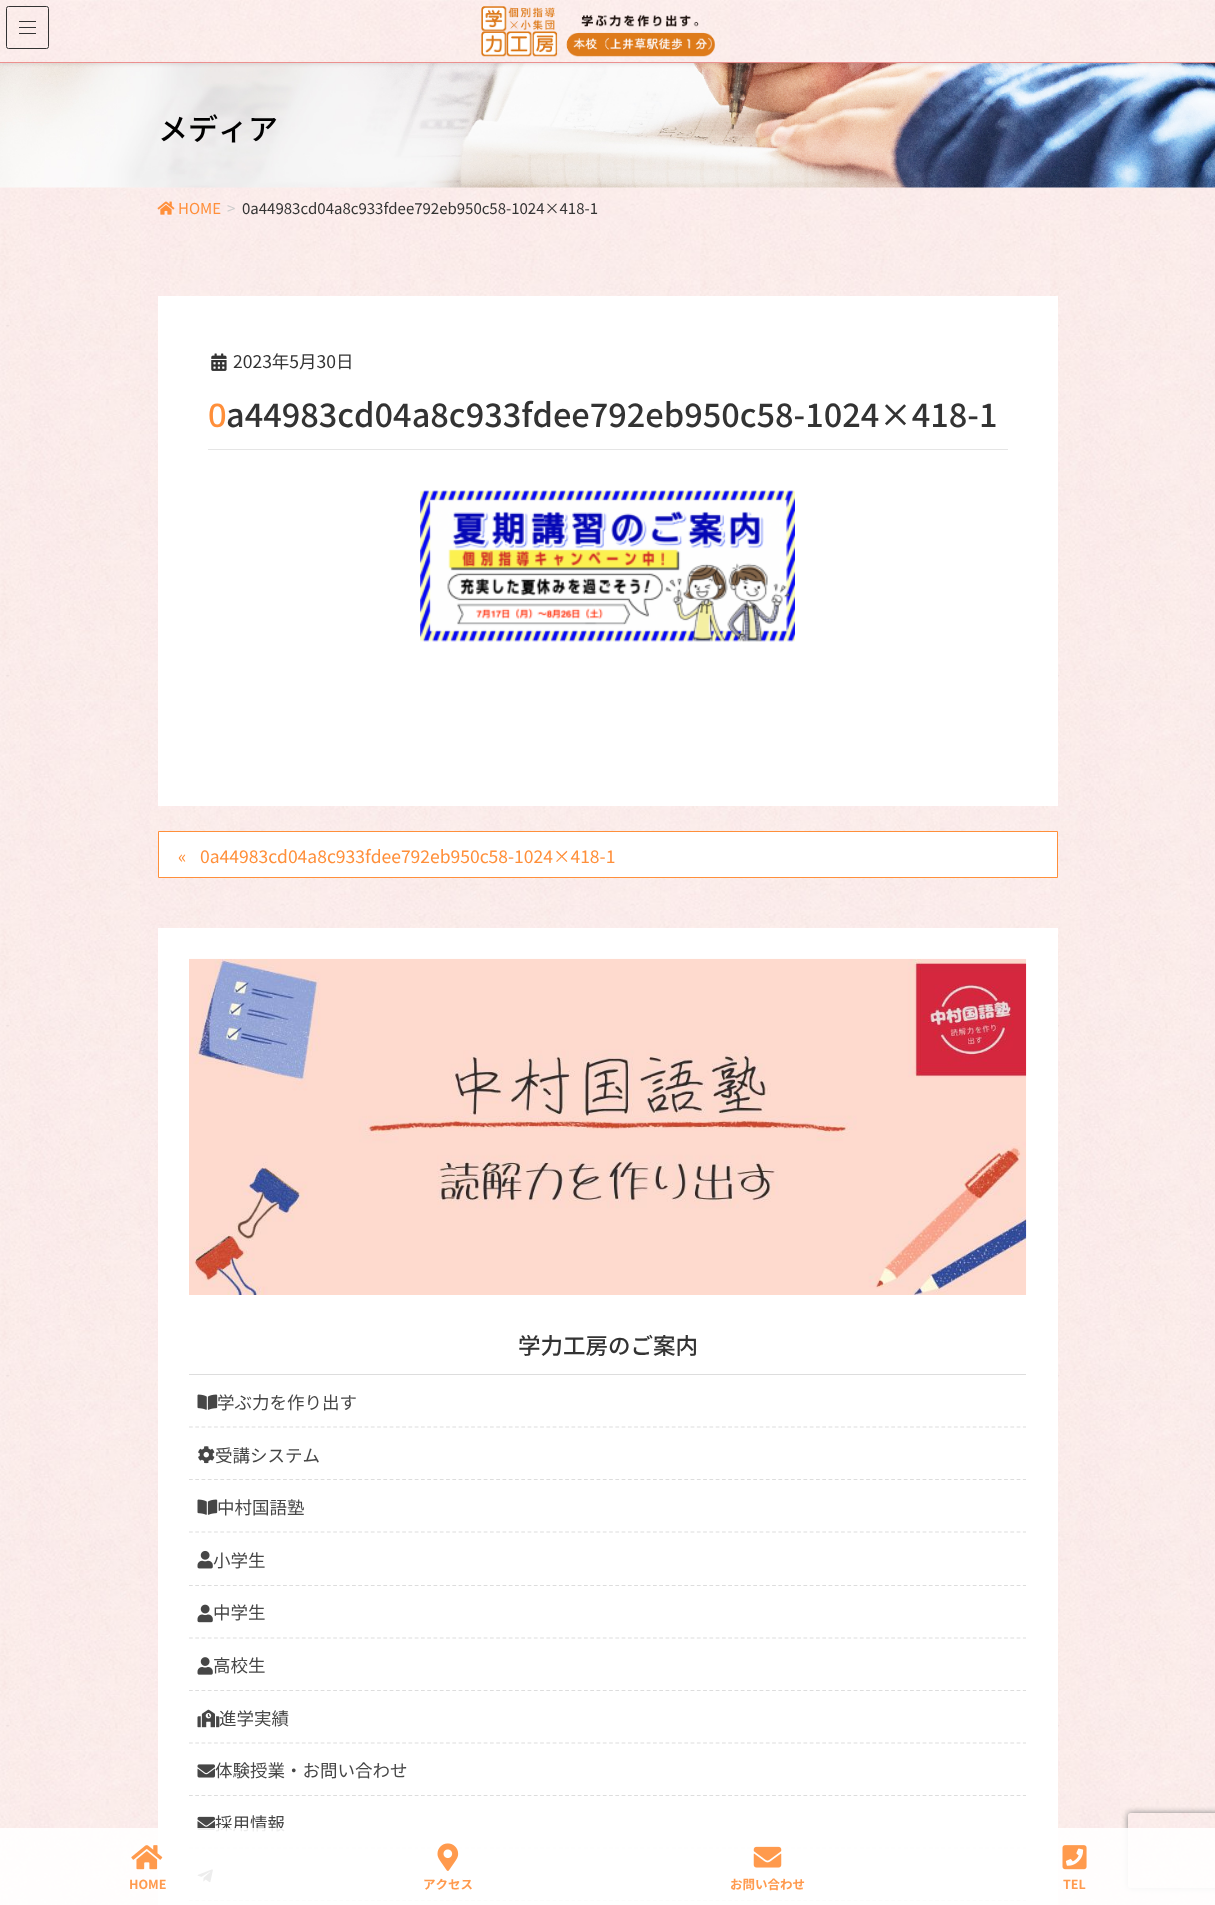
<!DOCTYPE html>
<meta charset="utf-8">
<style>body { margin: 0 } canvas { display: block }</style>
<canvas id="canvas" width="1215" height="1905"></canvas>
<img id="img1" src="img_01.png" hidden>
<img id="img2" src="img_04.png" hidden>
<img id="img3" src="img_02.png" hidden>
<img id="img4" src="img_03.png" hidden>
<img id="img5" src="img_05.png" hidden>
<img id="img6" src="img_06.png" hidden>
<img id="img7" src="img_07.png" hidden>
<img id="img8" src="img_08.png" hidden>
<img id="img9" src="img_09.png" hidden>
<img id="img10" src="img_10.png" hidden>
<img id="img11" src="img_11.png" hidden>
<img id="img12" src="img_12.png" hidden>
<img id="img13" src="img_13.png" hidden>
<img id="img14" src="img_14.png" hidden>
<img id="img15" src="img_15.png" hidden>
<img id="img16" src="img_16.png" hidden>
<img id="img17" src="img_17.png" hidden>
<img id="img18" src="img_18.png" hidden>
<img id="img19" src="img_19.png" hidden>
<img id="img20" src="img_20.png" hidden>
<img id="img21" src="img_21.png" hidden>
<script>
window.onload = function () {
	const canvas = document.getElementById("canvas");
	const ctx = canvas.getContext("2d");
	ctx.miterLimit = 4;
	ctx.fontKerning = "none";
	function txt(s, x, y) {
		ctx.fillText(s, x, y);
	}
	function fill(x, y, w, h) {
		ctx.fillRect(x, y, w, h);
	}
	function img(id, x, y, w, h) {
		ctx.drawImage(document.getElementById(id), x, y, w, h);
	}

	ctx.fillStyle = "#FFFFFF";
	fill(0, 0, 1215, 1905);
	img("img1", 0, 187, 1215, 1718);
	img("img2", 0, 63, 1215, 125);
	ctx.fillStyle = "rgba(0, 0, 0, 0.1)";
	ctx.filter = "blur(2px)";
	ctx.beginPath();
	ctx.rect(0, 1, 1215, 63);
	ctx.fill();
	ctx.filter = "none";
	ctx.fillStyle = "#DD3333";
	fill(0, 62, 1215, 1);
	img("img3", 0, 0, 1215, 63);
	img("img4", 481, 6, 234, 51);
	ctx.fillStyle = "#333333";
	fill(19, 21, 17, 1);
	fill(19, 27, 17, 1);
	fill(19, 33, 17, 1);
	ctx.beginPath();
	ctx.roundRect(6.5, 6.5, 42, 42, 2);
	ctx.strokeStyle = "#333333";
	ctx.stroke();
	img("img5", 157, 201, 18, 14);
	ctx.fillStyle = "#FFFFFF";
	fill(158, 296, 900, 510);
	ctx.fillStyle = "#E5E5E5";
	fill(208, 449, 800, 1);
	img("img6", 211, 353, 16, 18);
	img("img7", 420, 490, 375, 152);
	ctx.fillStyle = "#FFFFFF";
	ctx.beginPath();
	ctx.rect(158.5, 831.5, 899, 46);
	ctx.fill();
	ctx.strokeStyle = "#FF8F3A";
	ctx.stroke();
	fill(158, 928, 900, 977);
	img("img8", 189, 958, 838, 337);
	ctx.fillStyle = "#DDDDDD";
	fill(189, 1374, 837, 1);
	ctx.beginPath();
	ctx.moveTo(189, 1427);
	ctx.lineTo(1026, 1427);
	ctx.strokeStyle = "#DDDDDD";
	ctx.lineWidth = 1.2;
	ctx.setLineDash([3.75, 2.52]);
	ctx.stroke();
	img("img9", 197, 1394, 21, 16);
	ctx.beginPath();
	ctx.moveTo(189, 1479.5);
	ctx.lineTo(1026, 1479.5);
	ctx.stroke();
	img("img10", 198, 1446, 17, 18);
	ctx.beginPath();
	ctx.moveTo(189, 1532);
	ctx.lineTo(1026, 1532);
	ctx.stroke();
	img("img9", 197, 1499, 21, 16);
	ctx.beginPath();
	ctx.moveTo(189, 1585.5);
	ctx.lineTo(1026, 1585.5);
	ctx.stroke();
	img("img11", 197, 1550, 16, 19);
	ctx.beginPath();
	ctx.moveTo(189, 1638);
	ctx.lineTo(1026, 1638);
	ctx.stroke();
	img("img12", 197, 1604, 16, 19);
	ctx.beginPath();
	ctx.moveTo(189, 1690.5);
	ctx.lineTo(1026, 1690.5);
	ctx.stroke();
	img("img13", 197, 1657, 16, 18);
	ctx.beginPath();
	ctx.moveTo(189, 1743);
	ctx.lineTo(1026, 1743);
	ctx.stroke();
	img("img14", 197, 1709, 23, 19);
	ctx.beginPath();
	ctx.moveTo(189, 1795.5);
	ctx.lineTo(1026, 1795.5);
	ctx.stroke();
	img("img15", 197, 1764, 18, 14);
	ctx.beginPath();
	ctx.moveTo(189, 1848);
	ctx.lineTo(1026, 1848);
	ctx.stroke();
	img("img16", 197, 1816, 18, 14);
	ctx.save();
	ctx.beginPath();
	ctx.rect(189, 1326, 837, 575);
	ctx.clip();
	ctx.beginPath();
	ctx.moveTo(189, 1900.5);
	ctx.lineTo(1026, 1900.5);
	ctx.stroke();
	ctx.restore();
	img("img17", 197, 1869, 16, 14);
	ctx.save();
	ctx.beginPath();
	ctx.moveTo(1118, 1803);
	ctx.lineTo(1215, 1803);
	ctx.lineTo(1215, 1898);
	ctx.lineTo(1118, 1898);
	ctx.closePath();
	ctx.moveTo(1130.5, 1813);
	ctx.lineTo(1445.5, 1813);
	ctx.bezierCurveTo(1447, 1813, 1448, 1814, 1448, 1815.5);
	ctx.lineTo(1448, 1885.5);
	ctx.bezierCurveTo(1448, 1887, 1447, 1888, 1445.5, 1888);
	ctx.lineTo(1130.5, 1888);
	ctx.bezierCurveTo(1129, 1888, 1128, 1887, 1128, 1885.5);
	ctx.lineTo(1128, 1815.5);
	ctx.bezierCurveTo(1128, 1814, 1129, 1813, 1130.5, 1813);
	ctx.closePath();
	ctx.clip("evenodd");
	ctx.fillStyle = "#808080";
	ctx.filter = "blur(3px)";
	ctx.beginPath();
	ctx.roundRect(1128, 1813, 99, 75, 2.5);
	ctx.fill();
	ctx.filter = "none";
	ctx.restore();
	ctx.font = "500 30px Noto Sans JP";
	ctx.fillStyle = "#000000";
	txt("メディア", 158, 140);
	ctx.font = "15px Noto Sans JP";
	ctx.fillStyle = "#FF8F3A";
	txt("HOME", 178, 214);
	ctx.fillStyle = "#CCCCCC";
	txt(">", 227, 214);
	ctx.fillStyle = "#333333";
	txt("0a44983cd04a8c933fdee792eb950c58-1024×418-1", 242, 214);
	ctx.font = "17.5px Noto Sans JP";
	txt("2023年5月30日", 233, 368);
	ctx.font = "500 32.5px Noto Sans";
	ctx.fillStyle = "#FF8F3A";
	txt("0", 208, 427);
	ctx.font = "500 32.5px Noto Sans JP";
	ctx.fillStyle = "#333333";
	txt("a44983cd04a8c933fdee792eb950c58-1024×418-1", 226, 427);
	ctx.font = "17.5px Noto Sans JP";
	ctx.fillStyle = "#FF8F3A";
	txt("«", 178, 863);
	txt("0a44983cd04a8c933fdee792eb950c58-1024×418-1", 200, 863);
	ctx.font = "500 22.5px Noto Sans JP";
	ctx.fillStyle = "#333333";
	txt("学力工房のご案内", 518, 1354);
	ctx.font = "17.5px Noto Sans JP";
	ctx.fillStyle = "#464646";
	txt("学ぶ力を作り出す", 217, 1409);
	txt("受講システム", 215, 1462);
	txt("中村国語塾", 217, 1514);
	txt("小学生", 213, 1567);
	txt("中学生", 213, 1619);
	txt("高校生", 213, 1672);
	txt("進学実績", 219, 1725);
	txt("体験授業・お問い合わせ", 215, 1777);
	txt("採用情報", 215, 1830);
	ctx.fillStyle = "rgba(255, 255, 255, 0.9)";
	fill(0, 1828, 1215, 77);
	img("img18", 131, 1845, 32, 25);
	ctx.font = "bold 12.5px Noto Sans JP";
	ctx.fillStyle = "#FF9A4E";
	txt("HOME", 129, 1889);
	img("img19", 437, 1843, 22, 28);
	txt("アクセス", 423, 1889);
	img("img20", 753, 1846, 29, 22);
	txt("お問い合わせ", 730, 1889);
	img("img21", 1062, 1845, 25, 25);
	txt("TEL", 1063, 1889);
};
</script>
